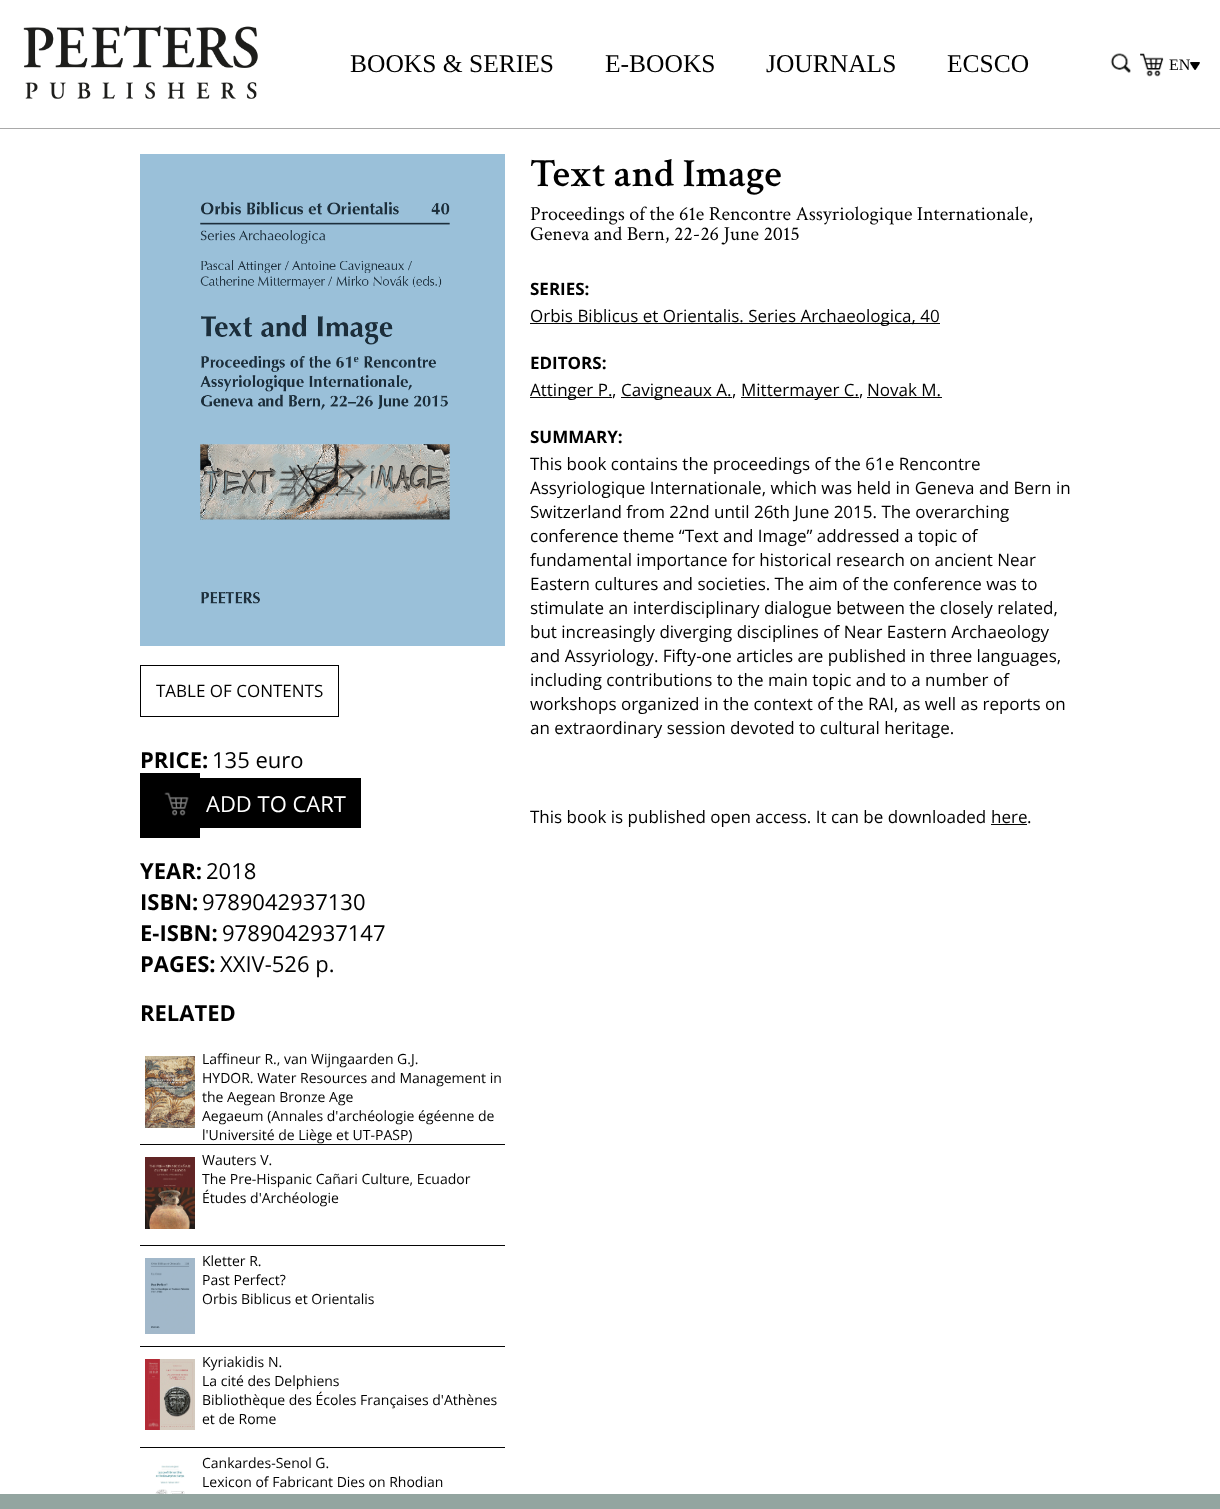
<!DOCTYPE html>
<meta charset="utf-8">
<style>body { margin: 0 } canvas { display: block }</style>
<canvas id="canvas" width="1220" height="1509"></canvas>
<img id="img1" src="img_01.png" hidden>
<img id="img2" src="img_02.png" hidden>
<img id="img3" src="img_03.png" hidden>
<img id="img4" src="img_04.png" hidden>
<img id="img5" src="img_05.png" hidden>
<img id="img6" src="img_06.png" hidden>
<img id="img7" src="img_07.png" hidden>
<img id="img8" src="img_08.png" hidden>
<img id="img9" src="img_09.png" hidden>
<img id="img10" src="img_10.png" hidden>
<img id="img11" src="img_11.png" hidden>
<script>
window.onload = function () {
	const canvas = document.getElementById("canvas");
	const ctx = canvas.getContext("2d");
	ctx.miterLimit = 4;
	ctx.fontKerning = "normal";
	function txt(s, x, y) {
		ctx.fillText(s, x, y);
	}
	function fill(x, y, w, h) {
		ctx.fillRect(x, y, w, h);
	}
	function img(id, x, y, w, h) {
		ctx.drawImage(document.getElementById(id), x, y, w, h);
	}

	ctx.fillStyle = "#FFFFFF";
	fill(0, 0, 1220, 1509);
	ctx.fillStyle = "#A9A9A9";
	fill(0, 128, 1220, 1);
	img("img1", 23, 25, 235, 74);
	img("img2", 1110, 53, 21, 20);
	img("img3", 1140, 53, 24, 24);
	img("img4", 1190, 62, 10, 8);
	img("img5", 140, 154, 365, 492);
	ctx.strokeStyle = "#000000";
	ctx.strokeRect(140.5, 665.5, 198, 51);
	ctx.fillStyle = "#050505";
	fill(530, 323, 410, 1);
	fill(530, 397, 82, 1);
	fill(621, 397, 111, 1);
	fill(741, 397, 118, 1);
	fill(867, 397, 75, 1);
	fill(991, 824, 36, 1);
	ctx.fillStyle = "#000000";
	fill(140, 773, 60, 65);
	img("img6", 164, 792, 25, 24);
	fill(200, 778, 161, 50);
	ctx.fillStyle = "#050505";
	fill(140, 1144, 365, 1);
	img("img7", 145, 1056, 50, 72);
	fill(140, 1245, 365, 1);
	img("img8", 145, 1157, 50, 72);
	fill(140, 1346, 365, 1);
	img("img9", 145, 1258, 50, 76);
	fill(140, 1447, 365, 1);
	img("img10", 145, 1359, 50, 71);
	img("img11", 155, 1465, 30, 29);
	ctx.fillStyle = "#93A5A0";
	fill(0, 1494, 1220, 15);
	ctx.font = "25.5px Liberation Serif";
	ctx.fillStyle = "#000000";
	txt("BOOKS & SERIES", 350, 72);
	txt("E-BOOKS", 605, 72);
	txt("JOURNALS", 766, 72);
	txt("ECSCO", 947, 72);
	ctx.font = "16px Liberation Serif";
	txt("EN", 1169, 70);
	ctx.font = "17px Open Sans";
	txt("TABLE OF CONTENTS", 156, 697);
	ctx.font = "600 40px Crimson Text";
	txt("Text and Image", 530, 186);
	ctx.font = "20px Crimson Text";
	txt("Proceedings of the 61e Rencontre Assyriologique Internationale,", 530, 220);
	txt("Geneva and Bern, 22-26 June 2015", 530, 240);
	ctx.font = "bold 17px Open Sans";
	txt("SERIES:", 530, 295);
	ctx.font = "17px Open Sans";
	txt("Orbis Biblicus et Orientalis. Series Archaeologica, 40", 530, 322);
	ctx.font = "bold 17px Open Sans";
	txt("EDITORS:", 530, 369);
	ctx.font = "17px Open Sans";
	txt("Attinger P.", 530, 396);
	txt(",", 612, 396);
	txt("Cavigneaux A.", 621, 396);
	txt(",", 732, 396);
	txt("Mittermayer C.", 741, 396);
	txt(",", 859, 396);
	txt("Novak M.", 867, 396);
	ctx.font = "bold 17px Open Sans";
	txt("SUMMARY:", 530, 443);
	ctx.font = "17px Open Sans";
	txt("This book contains the proceedings of the 61e Rencontre", 530, 470);
	txt("Assyriologique Internationale, which was held in Geneva and Bern in", 530, 494);
	txt("Switzerland from 22nd until 26th June 2015. The overarching", 530, 518);
	txt("conference theme “Text and Image” addressed a topic of", 530, 542);
	txt("fundamental importance for historical research on ancient Near", 530, 566);
	txt("Eastern cultures and societies. The aim of the conference was to", 530, 590);
	txt("stimulate an interdisciplinary dialogue between the closely related,", 530, 614);
	txt("but increasingly diverging disciplines of Near Eastern Archaeology", 530, 638);
	txt("and Assyriology. Fifty-one articles are published in three languages,", 530, 662);
	txt("including contributions to the main topic and to a number of", 530, 686);
	txt("workshops organized in the context of the RAI, as well as reports on", 530, 710);
	txt("an extraordinary session devoted to cultural heritage.", 530, 734);
	txt("This book is published open access. It can be downloaded", 530, 823);
	txt("here", 991, 823);
	txt(".", 1027, 823);
	ctx.font = "bold 22px Open Sans";
	txt("PRICE:", 140, 768);
	ctx.font = "22px Open Sans";
	txt("135 euro", 212, 768);
	ctx.fillStyle = "#FFFFFF";
	txt("ADD TO CART", 206, 812);
	ctx.font = "bold 22px Open Sans";
	ctx.fillStyle = "#000000";
	txt("YEAR:", 140, 879);
	ctx.font = "22px Open Sans";
	txt("2018", 206, 879);
	ctx.font = "bold 22px Open Sans";
	txt("ISBN:", 140, 910);
	ctx.font = "22px Open Sans";
	txt("9789042937130", 202, 910);
	ctx.font = "bold 22px Open Sans";
	txt("E-ISBN:", 140, 941);
	ctx.font = "22px Open Sans";
	txt("9789042937147", 222, 941);
	ctx.font = "bold 22px Open Sans";
	txt("PAGES:", 140, 972);
	ctx.font = "22px Open Sans";
	txt("XXIV-526 p.", 220, 972);
	ctx.font = "bold 22px Open Sans";
	txt("RELATED", 140, 1021);
	ctx.font = "14px Open Sans";
	txt("Laffineur R., van Wijngaarden G.J.", 202, 1064);
	txt("HYDOR. Water Resources and Management in", 202, 1083);
	txt("the Aegean Bronze Age", 202, 1102);
	txt("Aegaeum (Annales d'archéologie égéenne de", 202, 1121);
	txt("l'Université de Liège et UT-PASP)", 202, 1140);
	txt("Wauters V.", 202, 1165);
	txt("The Pre-Hispanic Cañari Culture, Ecuador", 202, 1184);
	txt("Études d'Archéologie", 202, 1203);
	txt("Kletter R.", 202, 1266);
	txt("Past Perfect?", 202, 1285);
	txt("Orbis Biblicus et Orientalis", 202, 1304);
	txt("Kyriakidis N.", 202, 1367);
	txt("La cité des Delphiens", 202, 1386);
	txt("Bibliothèque des Écoles Françaises d'Athènes", 202, 1405);
	txt("et de Rome", 202, 1424);
	txt("Cankardes-Senol G.", 202, 1468);
	txt("Lexicon of Fabricant Dies on Rhodian", 202, 1487);
};
</script>
